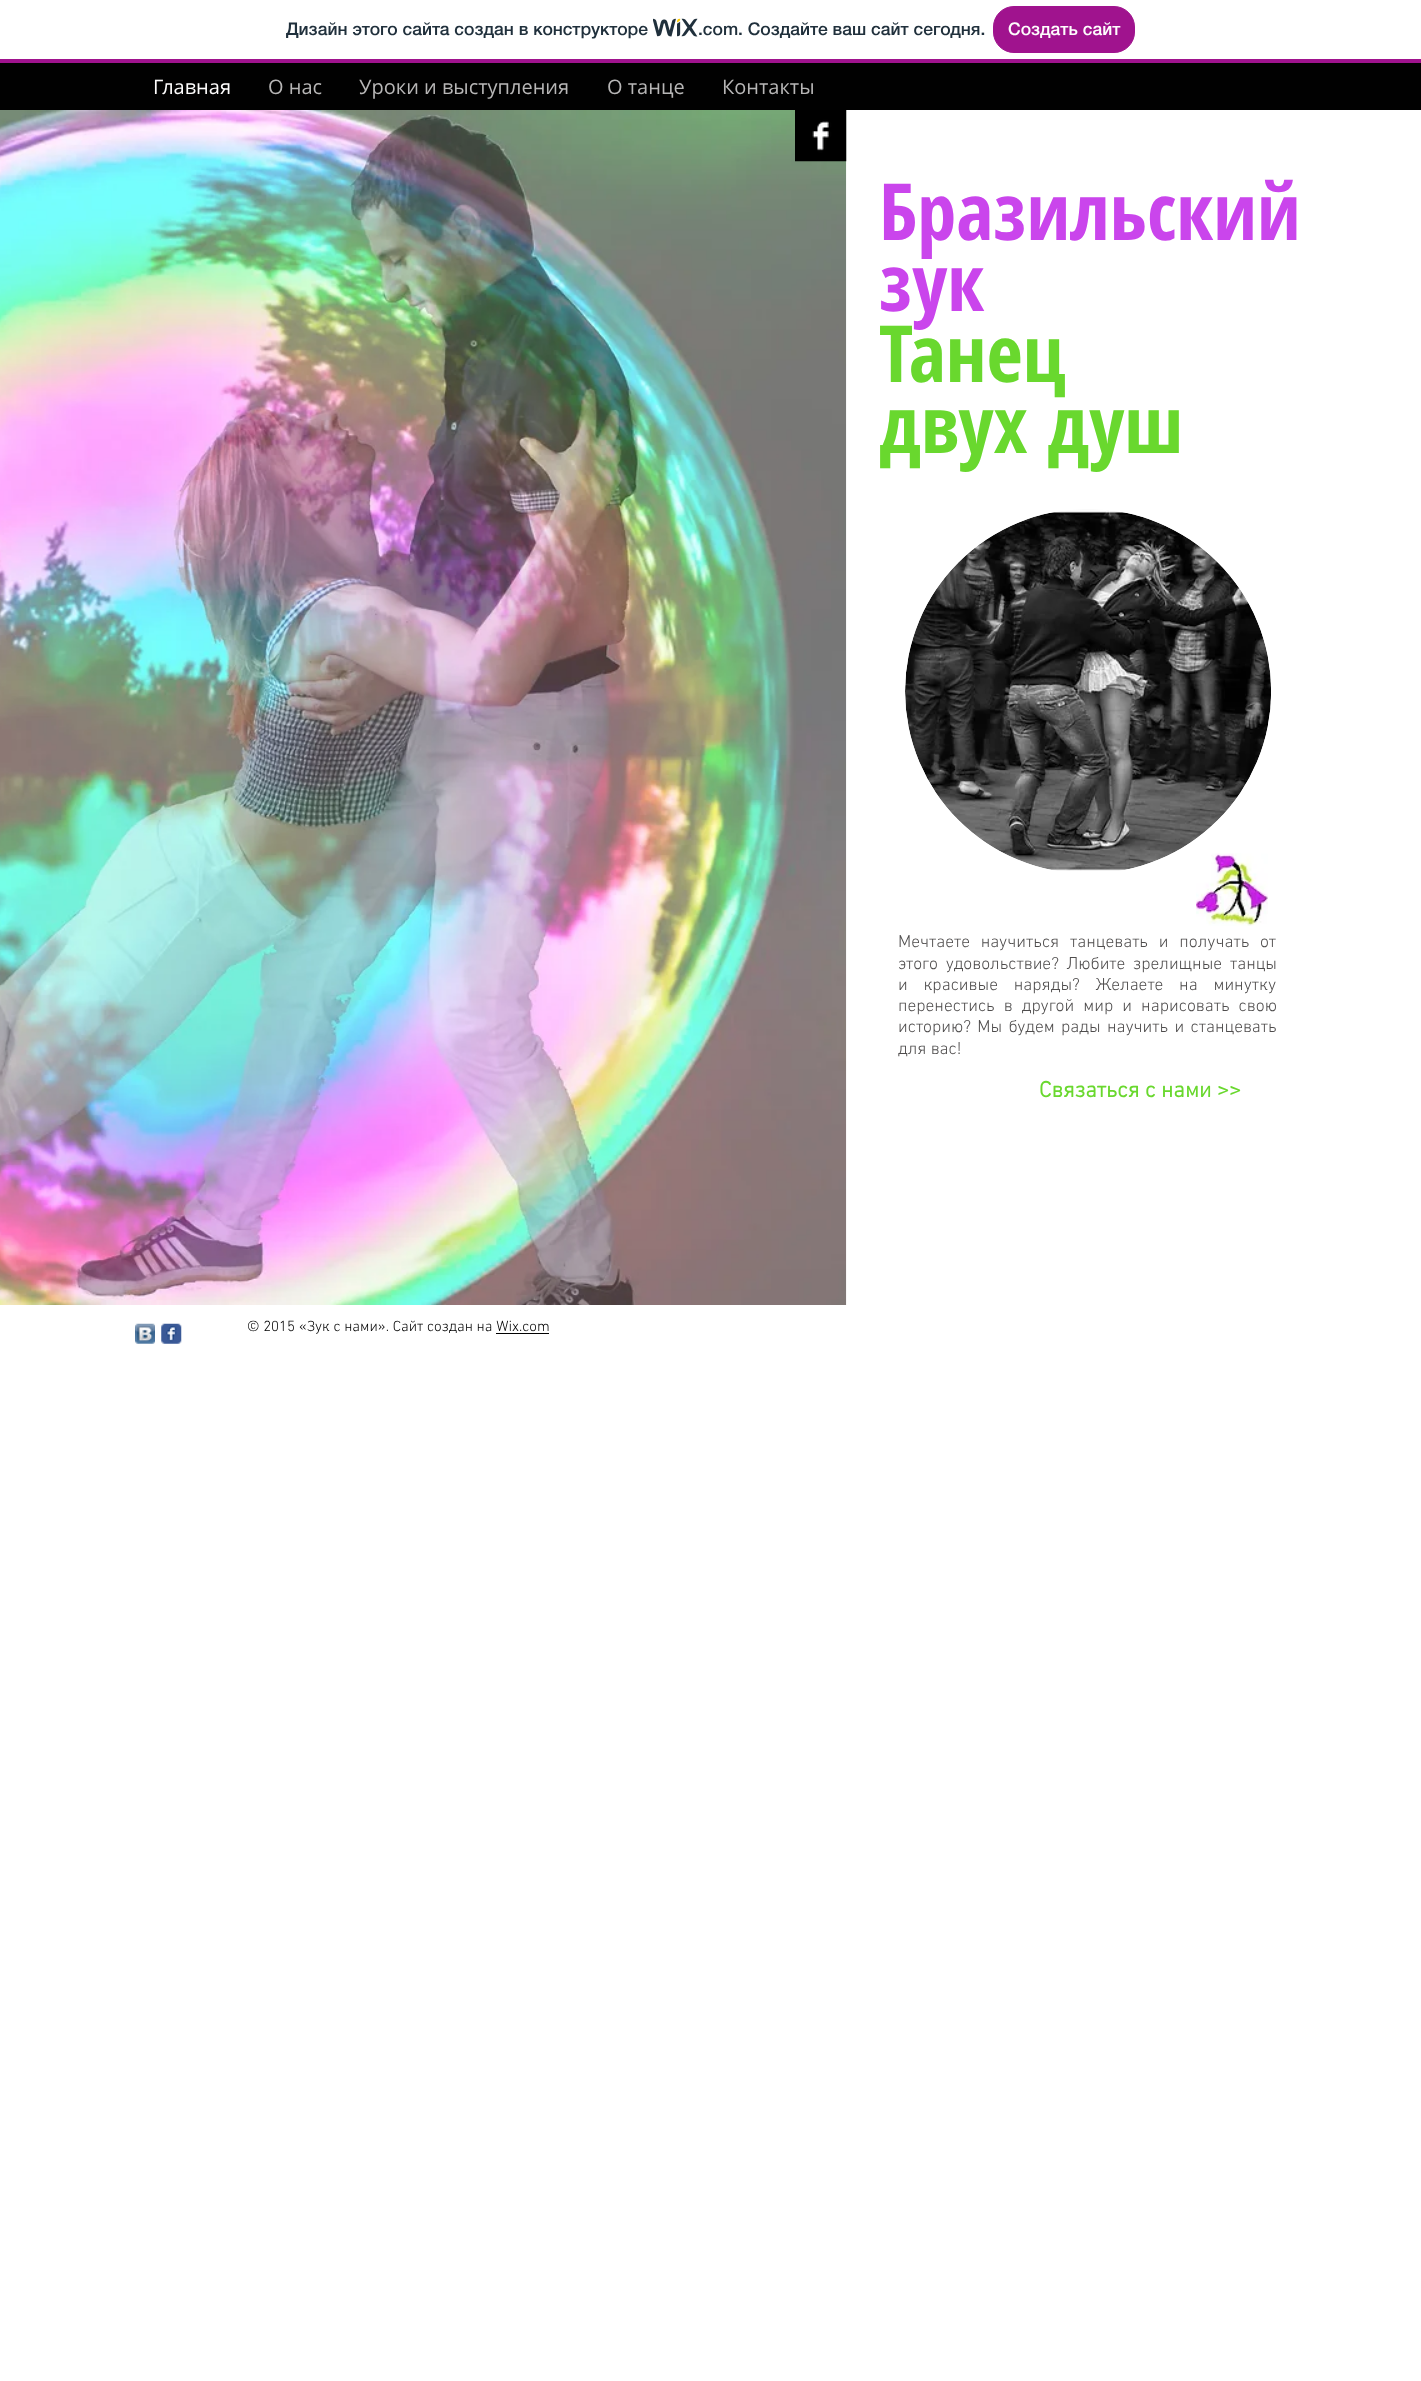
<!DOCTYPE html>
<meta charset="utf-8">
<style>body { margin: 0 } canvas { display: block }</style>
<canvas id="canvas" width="1421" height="2381"></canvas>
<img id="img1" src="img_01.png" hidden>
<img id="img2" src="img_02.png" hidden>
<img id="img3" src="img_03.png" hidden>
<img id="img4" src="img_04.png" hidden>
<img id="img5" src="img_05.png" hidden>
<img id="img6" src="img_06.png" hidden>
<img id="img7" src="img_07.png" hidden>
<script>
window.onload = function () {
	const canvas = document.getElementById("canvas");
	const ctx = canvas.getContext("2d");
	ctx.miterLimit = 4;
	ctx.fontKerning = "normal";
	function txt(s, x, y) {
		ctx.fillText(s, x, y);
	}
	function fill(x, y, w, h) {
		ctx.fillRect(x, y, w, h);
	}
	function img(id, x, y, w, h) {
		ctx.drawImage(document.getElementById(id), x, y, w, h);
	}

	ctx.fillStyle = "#FFFFFF";
	fill(0, 0, 1421, 2381);
	ctx.fillStyle = "#A0138E";
	fill(0, 59, 1421, 4);
	img("img1", 653, 18, 45, 19);
	ctx.beginPath();
	ctx.roundRect(993.5, 6.5, 141, 46, 20.5);
	ctx.fill();
	ctx.strokeStyle = "#A0138E";
	ctx.stroke();
	ctx.fillStyle = "#010101";
	fill(0, 63, 1421, 47);
	img("img2", 0, 110, 847, 1195);
	img("img3", 795, 110, 52, 52);
	img("img4", 905, 509, 366, 362);
	img("img5", 1196, 853, 72, 73);
	img("img6", 135, 1323, 20, 21);
	img("img7", 161, 1323, 21, 21);
	fill(496, 1333, 53, 1);
	ctx.font = "500 17.5px 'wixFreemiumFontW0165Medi'";
	ctx.fillStyle = "#20303C";
	txt("Дизайн этого сайта создан в конструкторе", 286, 35);
	ctx.font = "500 17.5px 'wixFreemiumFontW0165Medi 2'";
	txt(".com", 698, 35);
	ctx.font = "500 17.5px 'wixFreemiumFontW0165Medi'";
	txt(". Создайте ваш сайт сегодня.", 738, 35);
	ctx.fillStyle = "#FEFDFD";
	txt("Создать сайт", 1008, 35);
	ctx.font = "20px Open Sans";
	txt("Главная", 153, 94);
	ctx.fillStyle = "#B7B6B6";
	txt("О нас", 268, 94);
	txt("Уроки и выступления", 359, 94);
	txt("О танце", 607, 94);
	txt("Контакты", 722, 94);
	ctx.font = "bold 78.75px Open Sans Condensed";
	ctx.fillStyle = "#CA45EC";
	txt("Бразильский", 879, 240);
	txt("зук", 879, 311);
	ctx.fillStyle = "#69D82E";
	txt("Танец", 879, 382);
	txt("двух душ", 879, 453);
	ctx.wordSpacing = "6.5px";
	ctx.font = "300 17.5px 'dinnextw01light'";
	ctx.fillStyle = "#4F4D4D";
	txt("Мечтаете научиться танцевать и получать от", 898, 947);
	ctx.wordSpacing = "3.5px";
	txt("этого удовольствие? Любите зрелищные танцы", 898, 969);
	ctx.wordSpacing = "11.5px";
	txt("и красивые наряды? Желаете на минутку", 898, 990);
	ctx.wordSpacing = "4.75px";
	txt("перенестись в другой мир и нарисовать свою", 898, 1011);
	ctx.wordSpacing = "2px";
	txt("историю? Мы будем рады научить и станцевать", 898, 1032);
	ctx.wordSpacing = "0px";
	txt("для вас!", 898, 1054);
	ctx.font = "bold 22.5px 'dinnextw01light'";
	ctx.fillStyle = "#69D82E";
	txt("Связаться с нами >>", 1039, 1097);
	ctx.font = "300 15px 'dinnextw01light'";
	ctx.fillStyle = "#010101";
	txt("© 2015 «Зук с нами». Сайт создан на Wix.com", 247, 1331);
};
</script>
